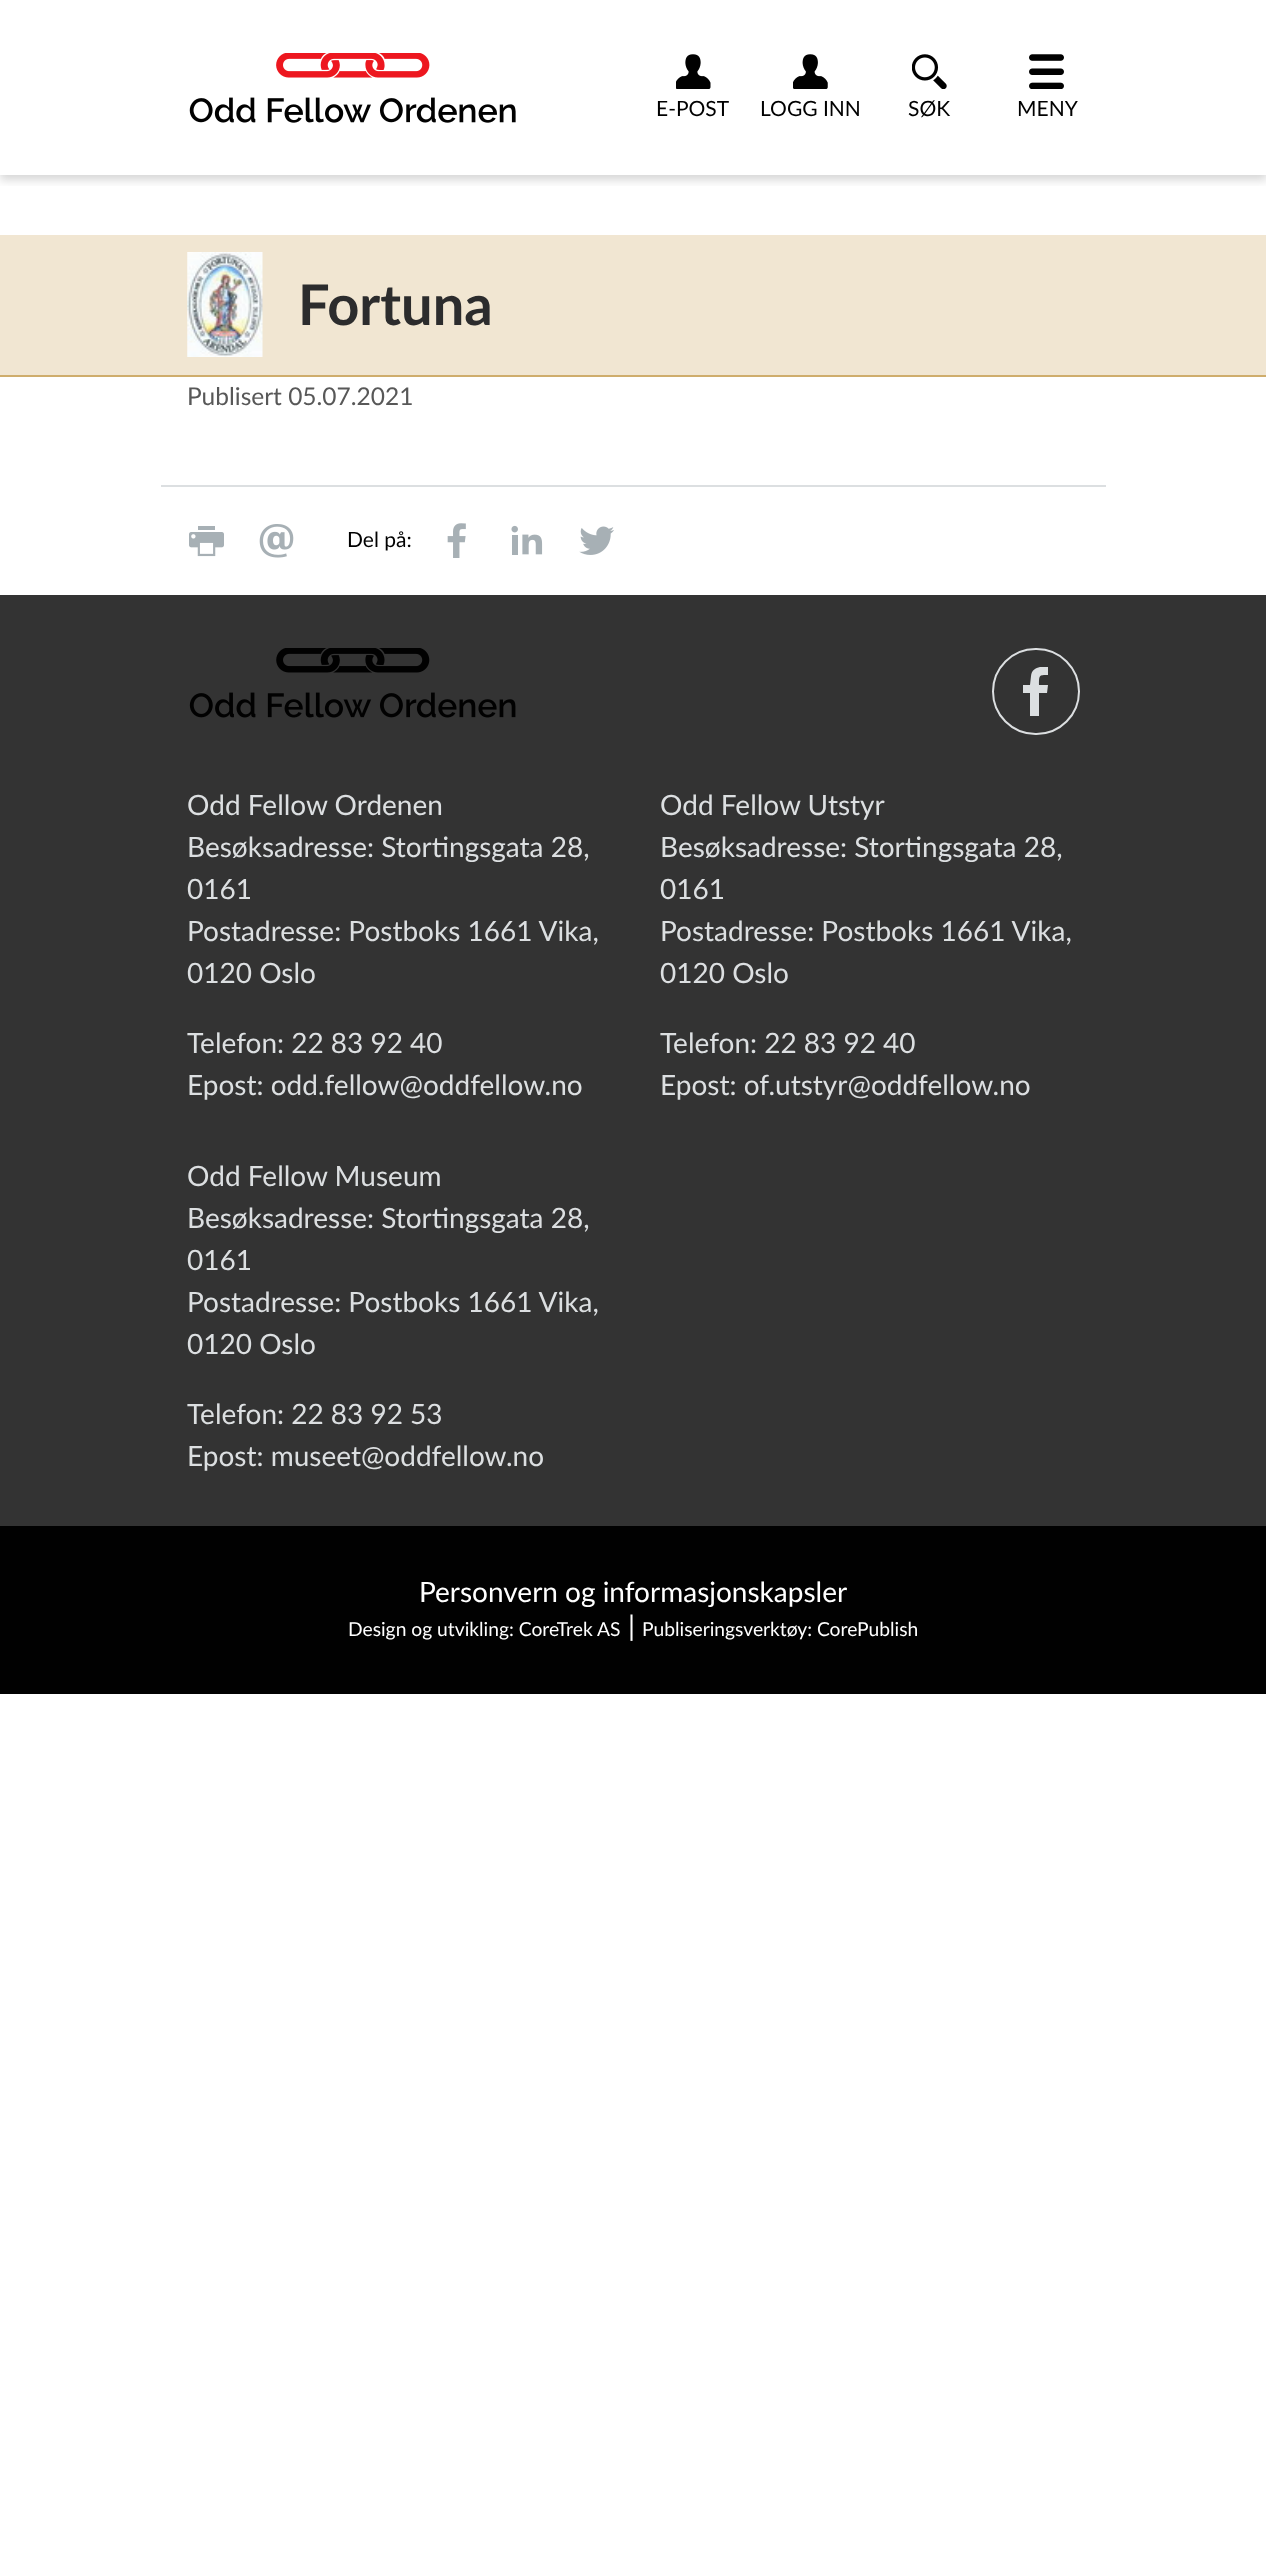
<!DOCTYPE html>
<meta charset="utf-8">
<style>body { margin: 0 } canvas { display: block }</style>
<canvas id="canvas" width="1266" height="2563"></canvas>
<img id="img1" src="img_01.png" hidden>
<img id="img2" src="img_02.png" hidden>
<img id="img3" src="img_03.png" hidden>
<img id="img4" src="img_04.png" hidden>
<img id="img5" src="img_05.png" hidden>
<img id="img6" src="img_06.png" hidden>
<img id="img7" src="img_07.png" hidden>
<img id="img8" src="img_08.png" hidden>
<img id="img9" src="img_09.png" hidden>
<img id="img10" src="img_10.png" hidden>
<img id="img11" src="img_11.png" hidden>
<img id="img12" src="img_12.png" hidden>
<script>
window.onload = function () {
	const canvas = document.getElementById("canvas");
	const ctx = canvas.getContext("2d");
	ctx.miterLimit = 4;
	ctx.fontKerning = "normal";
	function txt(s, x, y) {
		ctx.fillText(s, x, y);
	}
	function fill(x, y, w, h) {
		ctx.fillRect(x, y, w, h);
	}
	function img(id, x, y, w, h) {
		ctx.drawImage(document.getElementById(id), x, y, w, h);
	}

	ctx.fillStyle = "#FFFFFF";
	fill(0, 0, 1266, 2563);
	ctx.save();
	ctx.beginPath();
	ctx.rect(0, 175, 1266, 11);
	ctx.clip();
	ctx.fillStyle = "rgba(0, 0, 0, 0.16)";
	ctx.filter = "blur(5px)";
	ctx.beginPath();
	ctx.rect(0, 5, 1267, 175);
	ctx.fill();
	ctx.filter = "none";
	ctx.restore();
	img("img1", 189, 53, 327, 70);
	img("img2", 676, 54, 35, 35);
	img("img3", 793, 54, 35, 35);
	img("img4", 912, 54, 35, 35);
	img("img5", 1029, 54, 35, 35);
	ctx.fillStyle = "#F1E6D2";
	fill(0, 235, 1266, 140);
	ctx.fillStyle = "#CFAD6C";
	fill(0, 375, 1266, 2);
	img("img6", 187, 252, 76, 105);
	ctx.fillStyle = "#DCDFE1";
	fill(161, 485, 945, 2);
	img("img7", 189, 526, 35, 31);
	img("img8", 259, 524, 35, 34);
	img("img9", 447, 523, 19, 35);
	img("img10", 511, 525, 32, 30);
	img("img11", 579, 526, 35, 29);
	ctx.fillStyle = "#333333";
	fill(0, 595, 1266, 931);
	img("img12", 189, 648, 327, 70);
	ctx.beginPath();
	ctx.roundRect(993, 649, 86, 85, 42.5);
	ctx.strokeStyle = "#DCDFE1";
	ctx.lineWidth = 2;
	ctx.stroke();
	ctx.save();
	ctx.beginPath();
	ctx.rect(1006, 667, 59, 49);
	ctx.clip();
	ctx.fillStyle = "#DCDFE1";
	ctx.beginPath();
	ctx.moveTo(1039, 716);
	ctx.lineTo(1039, 693);
	ctx.lineTo(1047, 693);
	ctx.lineTo(1048, 685);
	ctx.lineTo(1039, 685);
	ctx.bezierCurveTo(1039, 675, 1039, 675, 1048, 675);
	ctx.lineTo(1048, 667);
	ctx.bezierCurveTo(1041, 666, 1032, 667, 1031, 676);
	ctx.lineTo(1030, 685);
	ctx.lineTo(1023, 685);
	ctx.lineTo(1023, 693);
	ctx.lineTo(1030, 693);
	ctx.lineTo(1030, 716);
	ctx.closePath();
	ctx.fill();
	ctx.restore();
	ctx.fillStyle = "#010101";
	fill(0, 1526, 1266, 168);
	ctx.font = "21px Lato";
	txt("E-POST", 656, 116);
	txt("LOGG INN", 760, 116);
	txt("SØK", 908, 116);
	txt("MENY", 1017, 116);
	ctx.font = "bold 56px Lato";
	ctx.fillStyle = "#2C2C2D";
	txt("Fortuna", 298, 325);
	ctx.font = "24.5px Lato";
	ctx.fillStyle = "#585858";
	txt("Publisert 05.07.2021", 187, 405);
	ctx.font = "21px Lato";
	ctx.fillStyle = "#010101";
	txt("Del på:", 347, 547);
	ctx.font = "28px Lato";
	ctx.fillStyle = "#DCDFE1";
	txt("Odd Fellow Ordenen", 187, 815);
	txt("Besøksadresse: Stortingsgata 28,", 187, 857);
	txt("0161", 187, 899);
	txt("Postadresse: Postboks 1661 Vika,", 187, 941);
	txt("0120 Oslo", 187, 983);
	txt("Telefon: 22 83 92 40", 187, 1053);
	txt("Epost: odd.fellow@oddfellow.no", 187, 1095);
	txt("Odd Fellow Utstyr", 660, 815);
	txt("Besøksadresse: Stortingsgata 28,", 660, 857);
	txt("0161", 660, 899);
	txt("Postadresse: Postboks 1661 Vika,", 660, 941);
	txt("0120 Oslo", 660, 983);
	txt("Telefon: 22 83 92 40", 660, 1053);
	txt("Epost: of.utstyr@oddfellow.no", 660, 1095);
	txt("Odd Fellow Museum", 187, 1186);
	txt("Besøksadresse: Stortingsgata 28,", 187, 1228);
	txt("0161", 187, 1270);
	txt("Postadresse: Postboks 1661 Vika,", 187, 1312);
	txt("0120 Oslo", 187, 1354);
	txt("Telefon: 22 83 92 53", 187, 1424);
	txt("Epost: museet@oddfellow.no", 187, 1466);
	ctx.fillStyle = "#FFFFFF";
	txt("Personvern og informasjonskapsler", 419, 1602);
	ctx.font = "19.25px Lato";
	txt("Design og utvikling: CoreTrek AS", 348, 1636);
	ctx.font = "28px Lato";
	txt("|", 628, 1636);
	ctx.font = "19.25px Lato";
	txt("Publiseringsverktøy: CorePublish", 642, 1636);
};
</script>
